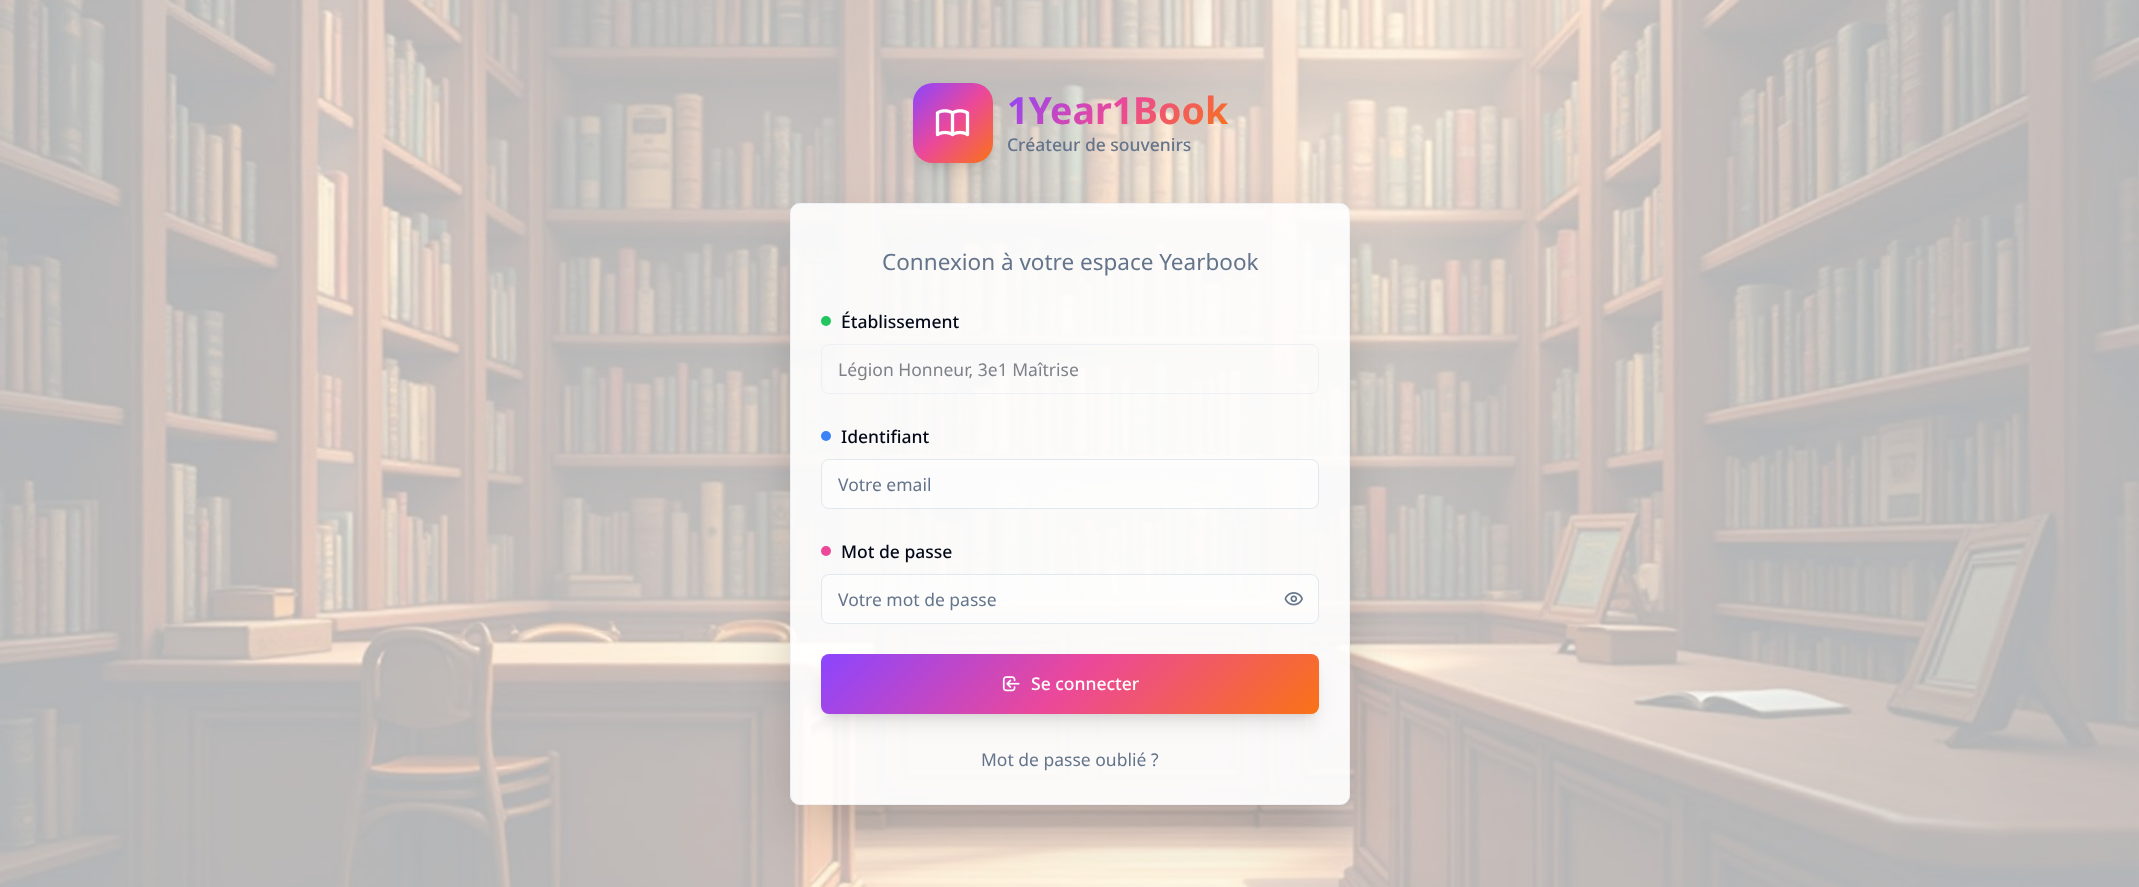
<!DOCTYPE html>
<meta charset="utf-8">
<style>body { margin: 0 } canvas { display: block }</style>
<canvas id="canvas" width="2139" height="887"></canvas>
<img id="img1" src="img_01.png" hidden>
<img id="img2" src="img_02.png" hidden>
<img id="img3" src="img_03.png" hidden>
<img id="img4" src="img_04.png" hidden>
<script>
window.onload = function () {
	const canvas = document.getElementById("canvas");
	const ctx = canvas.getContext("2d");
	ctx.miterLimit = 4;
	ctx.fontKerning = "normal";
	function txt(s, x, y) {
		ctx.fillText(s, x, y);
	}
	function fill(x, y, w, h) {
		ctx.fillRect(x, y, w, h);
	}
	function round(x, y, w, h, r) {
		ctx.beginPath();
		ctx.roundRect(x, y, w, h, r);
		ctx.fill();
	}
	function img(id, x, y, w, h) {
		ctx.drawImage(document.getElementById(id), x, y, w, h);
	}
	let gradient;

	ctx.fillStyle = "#FFFFFF";
	fill(0, 0, 2139, 887);
	img("img1", 0, 0, 2139, 887);
	ctx.fillStyle = "rgba(0, 0, 0, 0.1)";
	ctx.filter = "blur(4px)";
	ctx.beginPath();
	ctx.roundRect(918, 93, 70, 70, 15);
	ctx.fill();
	ctx.filter = "none";
	ctx.filter = "blur(9.5px)";
	ctx.beginPath();
	ctx.roundRect(916, 99, 73, 72, 16);
	ctx.fill();
	ctx.filter = "none";
	gradient = ctx.createLinearGradient(913, 83, 993, 163);
	gradient.addColorStop(0, "#8B45FF");
	gradient.addColorStop(0.5, "#EC4899");
	gradient.addColorStop(1, "#F97316");
	ctx.fillStyle = gradient;
	round(913, 83, 80, 80, 20);
	img("img2", 935, 109, 35, 28);
	ctx.save();
	ctx.beginPath();
	ctx.moveTo(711, 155);
	ctx.lineTo(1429, 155);
	ctx.lineTo(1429, 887);
	ctx.lineTo(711, 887);
	ctx.closePath();
	ctx.moveTo(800, 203);
	ctx.lineTo(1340, 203);
	ctx.bezierCurveTo(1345.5, 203, 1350, 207.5, 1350, 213);
	ctx.lineTo(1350, 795);
	ctx.bezierCurveTo(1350, 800.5, 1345.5, 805, 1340, 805);
	ctx.lineTo(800, 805);
	ctx.bezierCurveTo(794.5, 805, 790, 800.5, 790, 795);
	ctx.lineTo(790, 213);
	ctx.bezierCurveTo(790, 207.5, 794.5, 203, 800, 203);
	ctx.closePath();
	ctx.clip("evenodd");
	ctx.fillStyle = "rgba(0, 0, 0, 0.25)";
	ctx.filter = "blur(31px)";
	ctx.beginPath();
	ctx.rect(805, 249, 530, 572);
	ctx.fill();
	ctx.filter = "none";
	ctx.restore();
	ctx.fillStyle = "rgba(255, 255, 255, 0.9)";
	round(790, 203, 560, 602, 10);
	ctx.beginPath();
	ctx.roundRect(790.5, 203.5, 559, 601, 9.5);
	ctx.strokeStyle = "rgba(226, 232, 240, 0.5)";
	ctx.stroke();
	ctx.fillStyle = "#22C55E";
	ctx.beginPath();
	ctx.arc(826, 321, 5, 0, Math.PI * 2);
	ctx.fill();
	ctx.beginPath();
	ctx.roundRect(821.5, 344.5, 497, 49, 7.5);
	ctx.stroke();
	ctx.fillStyle = "#3B82F6";
	ctx.beginPath();
	ctx.arc(826, 436, 5, 0, Math.PI * 2);
	ctx.fill();
	ctx.fillStyle = "rgba(255, 255, 255, 0.5)";
	ctx.beginPath();
	ctx.roundRect(821.5, 459.5, 497, 49, 7.5);
	ctx.fill();
	ctx.strokeStyle = "#E2E8F0";
	ctx.stroke();
	ctx.fillStyle = "#EC4899";
	ctx.beginPath();
	ctx.arc(826, 551, 5, 0, Math.PI * 2);
	ctx.fill();
	ctx.fillStyle = "rgba(255, 255, 255, 0.5)";
	ctx.beginPath();
	ctx.roundRect(821.5, 574.5, 497, 49, 7.5);
	ctx.fill();
	ctx.stroke();
	img("img3", 1284, 592, 19, 14);
	ctx.fillStyle = "rgba(0, 0, 0, 0.1)";
	ctx.filter = "blur(4px)";
	ctx.beginPath();
	ctx.roundRect(826, 664, 488, 50, 2.5);
	ctx.fill();
	ctx.filter = "none";
	ctx.filter = "blur(9.5px)";
	ctx.beginPath();
	ctx.roundRect(825, 670, 490, 53, 4);
	ctx.fill();
	ctx.filter = "none";
	gradient = ctx.createLinearGradient(931, 544, 1209, 823);
	gradient.addColorStop(0, "#8B45FF");
	gradient.addColorStop(0.5, "#EC4899");
	gradient.addColorStop(1, "#F97316");
	ctx.fillStyle = gradient;
	round(821, 654, 498, 60, 8);
	img("img4", 1002, 676, 18, 16);
	ctx.font = "bold 37.5px Noto Sans";
	gradient = ctx.createLinearGradient(1051, 43, 1184, 177);
	gradient.addColorStop(0, "#8B45FF");
	gradient.addColorStop(0.5, "#EC4899");
	gradient.addColorStop(1, "#F97316");
	ctx.fillStyle = gradient;
	txt("1Year1Book", 1007, 124);
	ctx.font = "500 17.5px Noto Sans";
	ctx.fillStyle = "#64748B";
	txt("Créateur de souvenirs", 1007, 151);
	ctx.font = "22.5px Noto Sans";
	txt("Connexion à votre espace Yearbook", 882, 270);
	ctx.font = "500 17.5px Noto Sans";
	ctx.fillStyle = "#020817";
	txt("Établissement", 841, 328);
	ctx.font = "17.5px Noto Sans";
	ctx.fillStyle = "#7F8189";
	txt("Légion Honneur, 3e1 Maîtrise", 838, 376);
	ctx.font = "500 17.5px Noto Sans";
	ctx.fillStyle = "#020817";
	txt("Identifiant", 841, 443);
	ctx.font = "17.5px Noto Sans";
	ctx.fillStyle = "#64748B";
	txt("Votre email", 838, 491);
	ctx.font = "500 17.5px Noto Sans";
	ctx.fillStyle = "#020817";
	txt("Mot de passe", 841, 558);
	ctx.font = "17.5px Noto Sans";
	ctx.fillStyle = "#64748B";
	txt("Votre mot de passe", 838, 606);
	ctx.font = "500 17.5px Noto Sans";
	ctx.fillStyle = "#FFFFFF";
	txt("Se connecter", 1031, 690);
	ctx.font = "17.5px Noto Sans";
	ctx.fillStyle = "#64748B";
	txt("Mot de passe oublié ?", 981, 766);
};
</script>
